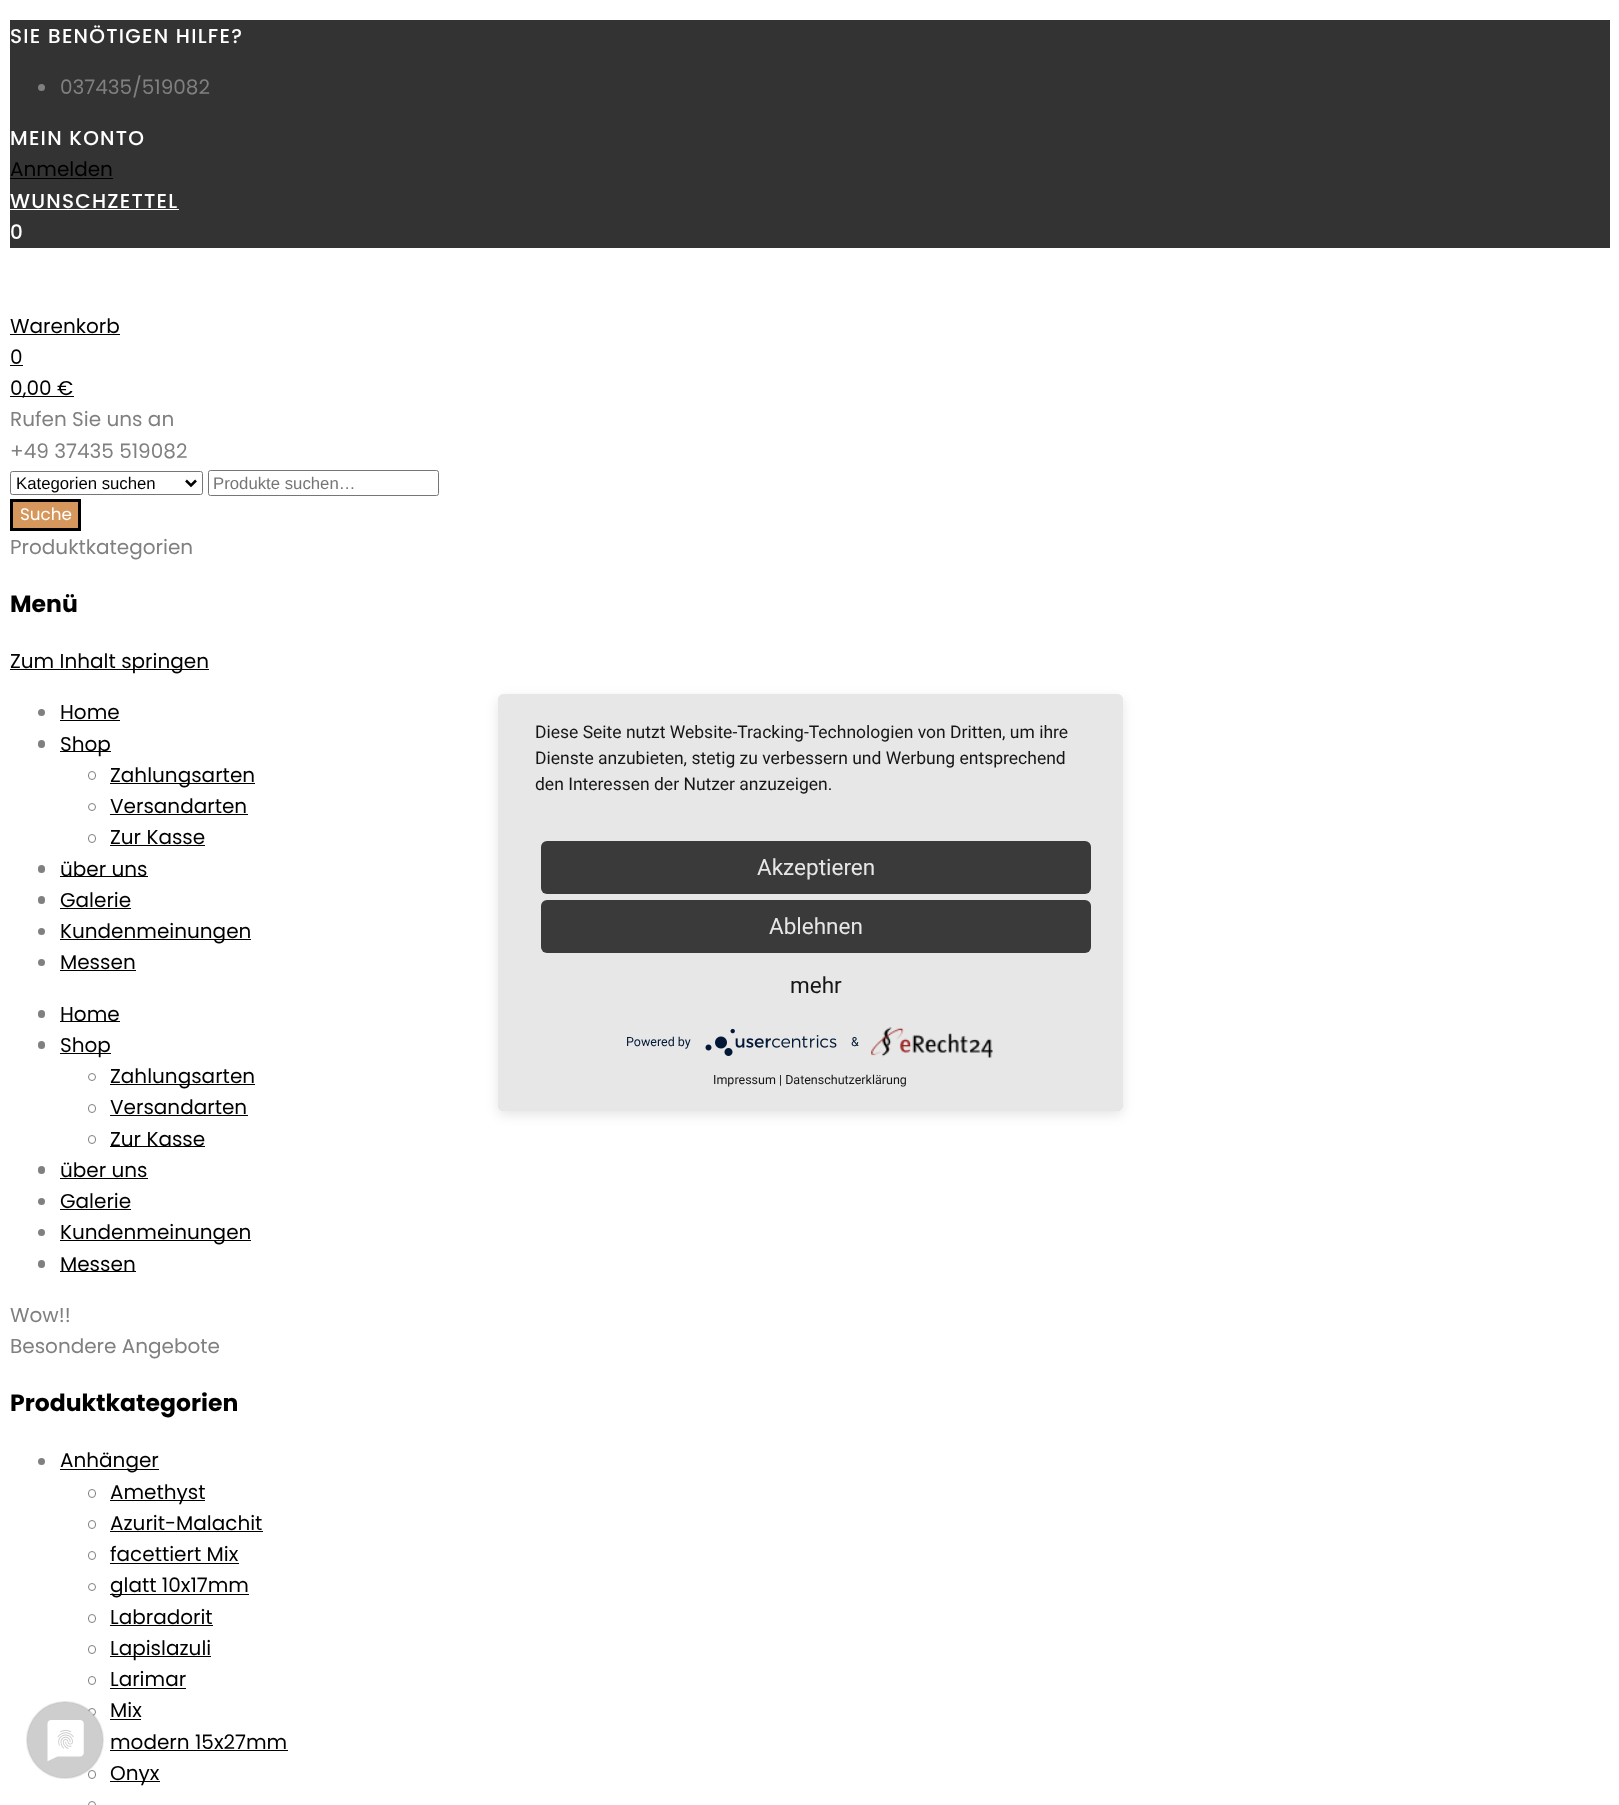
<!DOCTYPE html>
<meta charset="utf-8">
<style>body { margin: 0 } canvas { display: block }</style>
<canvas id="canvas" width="1619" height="1805"></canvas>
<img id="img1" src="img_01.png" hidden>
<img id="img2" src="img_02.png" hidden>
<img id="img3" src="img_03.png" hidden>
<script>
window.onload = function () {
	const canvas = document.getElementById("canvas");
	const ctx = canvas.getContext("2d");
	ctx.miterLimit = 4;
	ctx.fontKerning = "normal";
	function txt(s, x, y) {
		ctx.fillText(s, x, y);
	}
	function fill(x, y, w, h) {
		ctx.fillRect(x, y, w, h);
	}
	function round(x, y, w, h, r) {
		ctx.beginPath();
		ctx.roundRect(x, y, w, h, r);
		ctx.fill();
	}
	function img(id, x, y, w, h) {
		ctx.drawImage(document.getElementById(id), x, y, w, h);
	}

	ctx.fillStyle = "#FFFFFF";
	fill(0, 0, 1619, 1805);
	ctx.fillStyle = "#333333";
	fill(10, 20, 1600, 228);
	ctx.fillStyle = "#808080";
	ctx.beginPath();
	ctx.arc(41.5, 87.5, 3.5, 0, Math.PI * 2);
	ctx.fill();
	ctx.fillStyle = "#000000";
	fill(10, 178, 103, 1);
	ctx.fillStyle = "#FFFFFF";
	fill(10, 209, 169, 1);
	ctx.fillStyle = "#000000";
	fill(10, 334, 110, 1);
	fill(10, 365, 13, 1);
	fill(10, 396, 64, 1);
	ctx.beginPath();
	ctx.roundRect(10.5, 471.5, 192, 23, 2);
	ctx.strokeStyle = "#767676";
	ctx.stroke();
	ctx.beginPath();
	ctx.moveTo(186, 480.5);
	ctx.lineTo(191, 485.5);
	ctx.lineTo(196, 480.5);
	ctx.strokeStyle = "#000000";
	ctx.lineWidth = 2.5;
	ctx.stroke();
	ctx.beginPath();
	ctx.roundRect(208.5, 470.5, 230, 25, 2);
	ctx.strokeStyle = "#767676";
	ctx.lineWidth = 1;
	ctx.stroke();
	ctx.fillStyle = "#D6975C";
	ctx.beginPath();
	ctx.rect(11.5, 500.5, 68, 29);
	ctx.fill();
	ctx.strokeStyle = "#000000";
	ctx.lineWidth = 3;
	ctx.stroke();
	ctx.fillStyle = "#000000";
	fill(10, 669, 199, 1);
	ctx.fillStyle = "#808080";
	ctx.beginPath();
	ctx.arc(41.5, 712.5, 3.5, 0, Math.PI * 2);
	ctx.fill();
	ctx.fillStyle = "#000000";
	fill(60, 720, 60, 1);
	ctx.fillStyle = "#808080";
	round(38, 740, 7, 8, 3.5);
	ctx.fillStyle = "#000000";
	fill(60, 751, 51, 1);
	ctx.beginPath();
	ctx.roundRect(88.5, 771.5, 7, 8, 3.5);
	ctx.strokeStyle = "#808080";
	ctx.lineWidth = 1;
	ctx.stroke();
	fill(110, 783, 145, 1);
	ctx.beginPath();
	ctx.arc(92, 807, 3.5, 0, Math.PI * 2);
	ctx.stroke();
	fill(110, 814, 138, 1);
	ctx.beginPath();
	ctx.roundRect(88.5, 834.5, 7, 8, 3.5);
	ctx.stroke();
	fill(110, 845, 95, 1);
	ctx.fillStyle = "#808080";
	round(38, 865, 7, 8, 3.5);
	ctx.fillStyle = "#000000";
	fill(60, 876, 88, 1);
	ctx.fillStyle = "#808080";
	round(38, 896, 7, 8, 3.5);
	ctx.fillStyle = "#000000";
	fill(60, 908, 71, 1);
	ctx.fillStyle = "#808080";
	ctx.beginPath();
	ctx.arc(41.5, 931.5, 3.5, 0, Math.PI * 2);
	ctx.fill();
	ctx.fillStyle = "#000000";
	fill(60, 939, 191, 1);
	ctx.fillStyle = "#808080";
	ctx.beginPath();
	ctx.arc(41.5, 962.5, 3.5, 0, Math.PI * 2);
	ctx.fill();
	ctx.fillStyle = "#000000";
	fill(60, 970, 76, 1);
	ctx.fillStyle = "#808080";
	round(38, 1010, 7, 8, 3.5);
	ctx.fillStyle = "#000000";
	fill(60, 1021, 60, 1);
	ctx.fillStyle = "#808080";
	round(38, 1041, 7, 8, 3.5);
	ctx.fillStyle = "#000000";
	fill(60, 1053, 51, 1);
	ctx.beginPath();
	ctx.arc(92, 1077, 3.5, 0, Math.PI * 2);
	ctx.stroke();
	fill(110, 1084, 145, 1);
	ctx.beginPath();
	ctx.roundRect(88.5, 1104.5, 7, 8, 3.5);
	ctx.stroke();
	fill(110, 1115, 138, 1);
	ctx.beginPath();
	ctx.roundRect(88.5, 1135.5, 7, 8, 3.5);
	ctx.stroke();
	fill(110, 1146, 95, 1);
	ctx.fillStyle = "#808080";
	round(38, 1166, 7, 8, 3.5);
	ctx.fillStyle = "#000000";
	fill(60, 1178, 88, 1);
	ctx.fillStyle = "#808080";
	ctx.beginPath();
	ctx.arc(41.5, 1201.5, 3.5, 0, Math.PI * 2);
	ctx.fill();
	ctx.fillStyle = "#000000";
	fill(60, 1209, 71, 1);
	ctx.fillStyle = "#808080";
	ctx.beginPath();
	ctx.arc(41.5, 1232.5, 3.5, 0, Math.PI * 2);
	ctx.fill();
	ctx.fillStyle = "#000000";
	fill(60, 1240, 191, 1);
	ctx.fillStyle = "#808080";
	round(38, 1260, 7, 8, 3.5);
	ctx.fillStyle = "#000000";
	fill(60, 1271, 76, 1);
	ctx.fillStyle = "rgba(0, 0, 0, 0.1)";
	ctx.filter = "blur(6px)";
	ctx.beginPath();
	ctx.roundRect(498, 698, 625, 417, 6);
	ctx.fill();
	ctx.filter = "none";
	ctx.save();
	ctx.beginPath();
	ctx.roundRect(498, 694, 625, 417, 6);
	ctx.clip();
	ctx.fillStyle = "rgba(0, 0, 0, 0.3)";
	ctx.filter = "blur(22.5px)";
	ctx.beginPath();
	ctx.rect(498, 701, 625, 418);
	ctx.fill();
	ctx.filter = "none";
	ctx.restore();
	ctx.fillStyle = "#E7E7E7";
	round(498, 694, 625, 417, 6);
	ctx.fillStyle = "#3A3A3A";
	round(541, 841, 550, 53, 6);
	round(541, 900, 550, 53, 6);
	img("img1", 705, 1028, 132, 28);
	img("img2", 871, 1027, 122, 31);
	ctx.beginPath();
	ctx.arc(92, 1712, 3.5, 0, Math.PI * 2);
	ctx.stroke();
	ctx.beginPath();
	ctx.roundRect(88.5, 1770.5, 7, 8, 3.5);
	ctx.stroke();
	img("img3", 26, 1701, 78, 78);
	ctx.fillStyle = "#808080";
	ctx.beginPath();
	ctx.arc(41.5, 1461.5, 3.5, 0, Math.PI * 2);
	ctx.fill();
	ctx.fillStyle = "#000000";
	fill(60, 1469, 99, 1);
	ctx.beginPath();
	ctx.roundRect(88.5, 1489.5, 7, 8, 3.5);
	ctx.stroke();
	fill(110, 1500, 95, 1);
	ctx.beginPath();
	ctx.roundRect(88.5, 1520.5, 7, 8, 3.5);
	ctx.stroke();
	fill(110, 1531, 153, 1);
	ctx.beginPath();
	ctx.roundRect(88.5, 1551.5, 7, 8, 3.5);
	ctx.stroke();
	fill(110, 1563, 129, 1);
	ctx.beginPath();
	ctx.arc(92, 1587, 3.5, 0, Math.PI * 2);
	ctx.stroke();
	fill(110, 1594, 139, 1);
	ctx.beginPath();
	ctx.roundRect(88.5, 1614.5, 7, 8, 3.5);
	ctx.stroke();
	fill(110, 1625, 103, 1);
	ctx.beginPath();
	ctx.roundRect(88.5, 1645.5, 7, 8, 3.5);
	ctx.stroke();
	fill(110, 1656, 101, 1);
	ctx.beginPath();
	ctx.roundRect(88.5, 1676.5, 7, 8, 3.5);
	ctx.stroke();
	fill(110, 1688, 76, 1);
	fill(110, 1719, 31, 1);
	fill(110, 1750, 178, 1);
	fill(110, 1781, 50, 1);
	ctx.beginPath();
	ctx.roundRect(88.5, 1801.5, 7, 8, 3.5);
	ctx.stroke();
	ctx.letterSpacing = "1.25px";
	ctx.font = "500 20px Poppins";
	ctx.fillStyle = "#FFFFFF";
	txt("SIE BENÖTIGEN HILFE?", 10, 43);
	ctx.letterSpacing = "0px";
	ctx.font = "20px Poppins";
	ctx.fillStyle = "#808080";
	txt("037435/519082", 60, 94);
	ctx.letterSpacing = "1.25px";
	ctx.font = "500 20px Poppins";
	ctx.fillStyle = "#FFFFFF";
	txt("MEIN KONTO", 10, 145);
	ctx.letterSpacing = "0px";
	ctx.font = "20px Poppins";
	ctx.fillStyle = "#000000";
	txt("Anmelden", 10, 176);
	ctx.letterSpacing = "1.25px";
	ctx.font = "500 20px Poppins";
	ctx.fillStyle = "#FFFFFF";
	txt("WUNSCHZETTEL", 10, 208);
	txt("0", 10, 239);
	ctx.letterSpacing = "0px";
	ctx.font = "20px Poppins";
	ctx.fillStyle = "#000000";
	txt("Warenkorb", 10, 333);
	txt("0", 10, 364);
	txt("0,00 €", 10, 395);
	ctx.fillStyle = "#808080";
	txt("Rufen Sie uns an", 10, 426);
	txt("+49 37435 519082", 10, 458);
	ctx.font = "16.75px Liberation Sans";
	ctx.fillStyle = "#000000";
	txt("Kategorien suchen", 16, 489);
	ctx.fillStyle = "#757575";
	txt("Produkte suchen…", 213, 489);
	ctx.font = "16.75px Poppins";
	ctx.fillStyle = "#FFFFFF";
	txt("Suche", 20, 520);
	ctx.font = "20px Poppins";
	ctx.fillStyle = "#808080";
	txt("Produktkategorien", 10, 554);
	ctx.font = "bold 23.5px Poppins";
	ctx.fillStyle = "#000000";
	txt("Menü", 10, 612);
	ctx.font = "20px Poppins";
	txt("Zum Inhalt springen", 10, 668);
	txt("Home", 60, 719);
	txt("Shop", 60, 751);
	txt("Zahlungsarten", 110, 782);
	txt("Versandarten", 110, 813);
	txt("Zur Kasse", 110, 844);
	txt("über uns", 60, 876);
	txt("Galerie", 60, 907);
	txt("Kundenmeinungen", 60, 938);
	txt("Messen", 60, 969);
	txt("Home", 60, 1021);
	txt("Shop", 60, 1052);
	txt("Zahlungsarten", 110, 1083);
	txt("Versandarten", 110, 1114);
	txt("Zur Kasse", 110, 1146);
	txt("über uns", 60, 1177);
	txt("Galerie", 60, 1208);
	txt("Kundenmeinungen", 60, 1239);
	txt("Messen", 60, 1271);
	ctx.fillStyle = "#808080";
	txt("Wow!!", 10, 1322);
	txt("Besondere Angebote", 10, 1353);
	ctx.font = "17.5px Roboto";
	ctx.fillStyle = "#161616";
	txt("Diese Seite nutzt Website-Tracking-Technologien von Dritten, um ihre", 535, 738);
	txt("Dienste anzubieten, stetig zu verbessern und Werbung entsprechend", 535, 764);
	txt("den Interessen der Nutzer anzuzeigen.", 535, 790);
	ctx.font = "22.5px Roboto";
	ctx.fillStyle = "#E6E6E6";
	txt("Akzeptieren", 757, 875);
	txt("Ablehnen", 769, 934);
	ctx.fillStyle = "#161616";
	txt("mehr", 790, 993);
	ctx.font = "12.5px Roboto";
	ctx.fillStyle = "#021836";
	txt("Powered by", 626, 1046);
	txt("&", 851, 1046);
	ctx.fillStyle = "#161616";
	txt("Impressum | Datenschutzerklärung", 713, 1084);
	ctx.font = "bold 23.5px Poppins";
	ctx.fillStyle = "#000000";
	txt("Produktkategorien", 10, 1411);
	ctx.font = "20px Poppins";
	txt("Anhänger", 60, 1467);
	txt("Amethyst", 110, 1499);
	txt("Azurit-Malachit", 110, 1530);
	txt("facettiert Mix", 110, 1561);
	txt("glatt 10x17mm", 110, 1592);
	txt("Labradorit", 110, 1624);
	txt("Lapislazuli", 110, 1655);
	txt("Larimar", 110, 1686);
	txt("Mix", 110, 1717);
	txt("modern 15x27mm", 110, 1749);
	txt("Onyx", 110, 1780);
};
</script>
